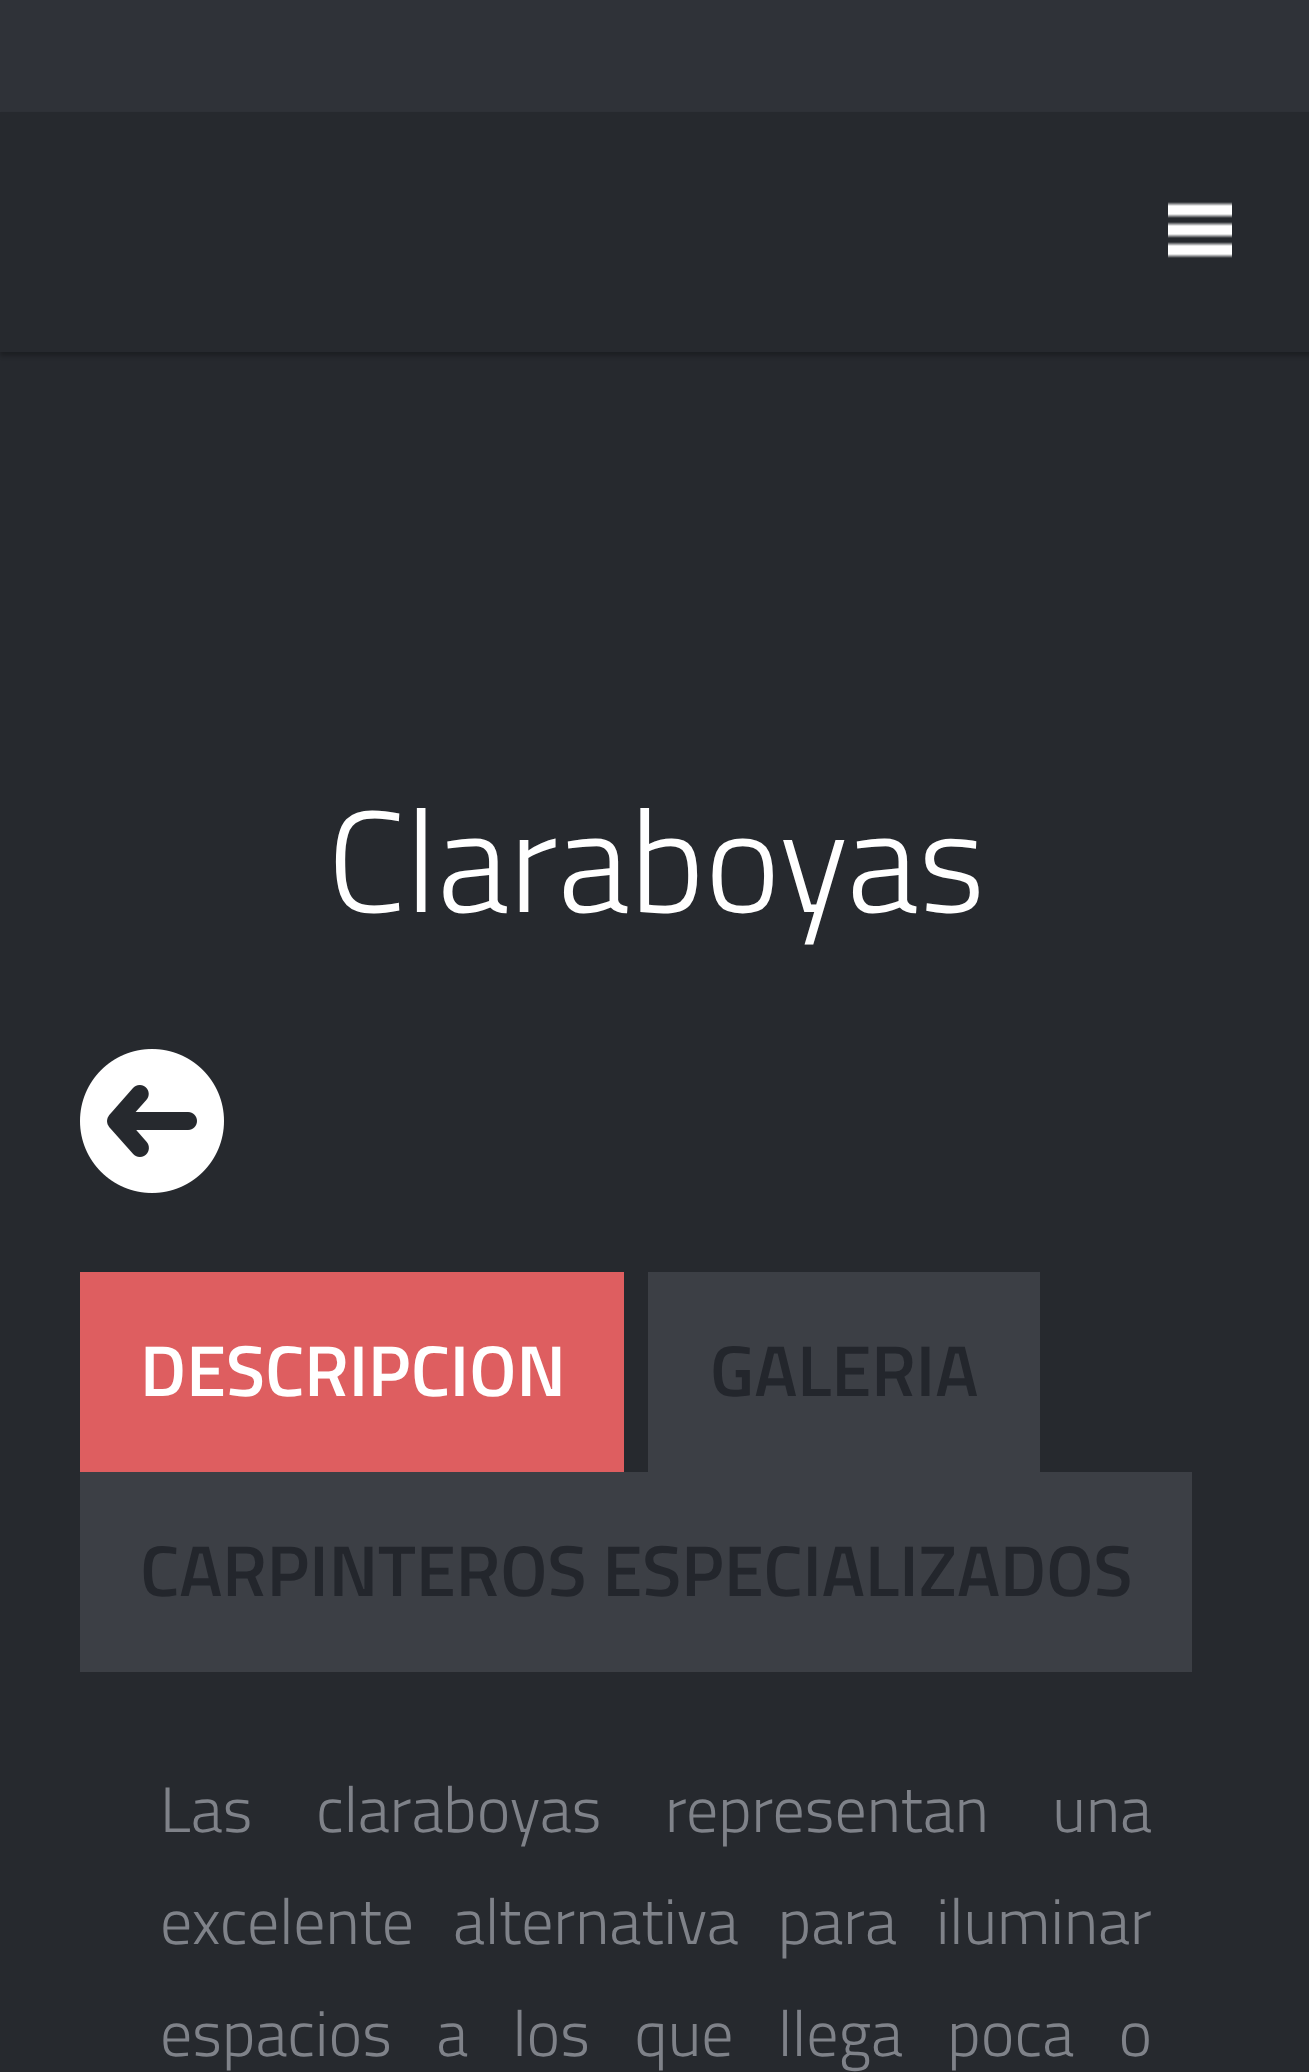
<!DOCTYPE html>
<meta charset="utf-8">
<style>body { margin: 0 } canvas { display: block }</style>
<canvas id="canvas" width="1309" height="2072"></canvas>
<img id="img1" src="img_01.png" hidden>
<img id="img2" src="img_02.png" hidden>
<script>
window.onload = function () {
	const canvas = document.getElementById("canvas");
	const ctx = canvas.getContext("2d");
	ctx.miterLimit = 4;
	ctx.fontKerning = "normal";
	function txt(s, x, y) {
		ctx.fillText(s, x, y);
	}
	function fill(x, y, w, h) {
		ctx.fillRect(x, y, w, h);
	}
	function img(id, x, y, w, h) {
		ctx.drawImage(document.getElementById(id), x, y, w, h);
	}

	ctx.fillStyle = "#2F3238";
	fill(0, 0, 1309, 2072);
	ctx.fillStyle = "#26292E";
	fill(0, 352, 1309, 1720);
	ctx.fillStyle = "rgba(0, 0, 0, 0.25)";
	ctx.filter = "blur(2px)";
	ctx.beginPath();
	ctx.rect(0, 116, 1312, 240);
	ctx.fill();
	ctx.filter = "none";
	ctx.fillStyle = "#26292E";
	fill(0, 112, 1309, 240);
	img("img1", 1168, 202, 64, 56);
	img("img2", 80, 1049, 144, 144);
	ctx.fillStyle = "#DE5E60";
	fill(80, 1272, 544, 200);
	ctx.fillStyle = "#3C3F45";
	fill(648, 1272, 392, 200);
	fill(80, 1472, 1112, 200);
	ctx.font = "300 144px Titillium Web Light";
	ctx.fillStyle = "#FFFFFF";
	txt("Claraboyas", 327, 912);
	ctx.font = "600 72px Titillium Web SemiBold";
	txt("DESCRIPCION", 140, 1396);
	ctx.fillStyle = "#23262C";
	txt("GALERIA", 710, 1396);
	txt("CARPINTEROS ESPECIALIZADOS", 140, 1596);
	ctx.wordSpacing = "49.5px";
	ctx.font = "300 64px Titillium Web Light";
	ctx.fillStyle = "#7F8289";
	txt("Las claraboyas representan una", 160, 1832);
	ctx.wordSpacing = "25px";
	txt("excelente alternativa para iluminar", 160, 1944);
	ctx.wordSpacing = "30.25px";
	txt("espacios a los que llega poca o", 160, 2056);
};
</script>
